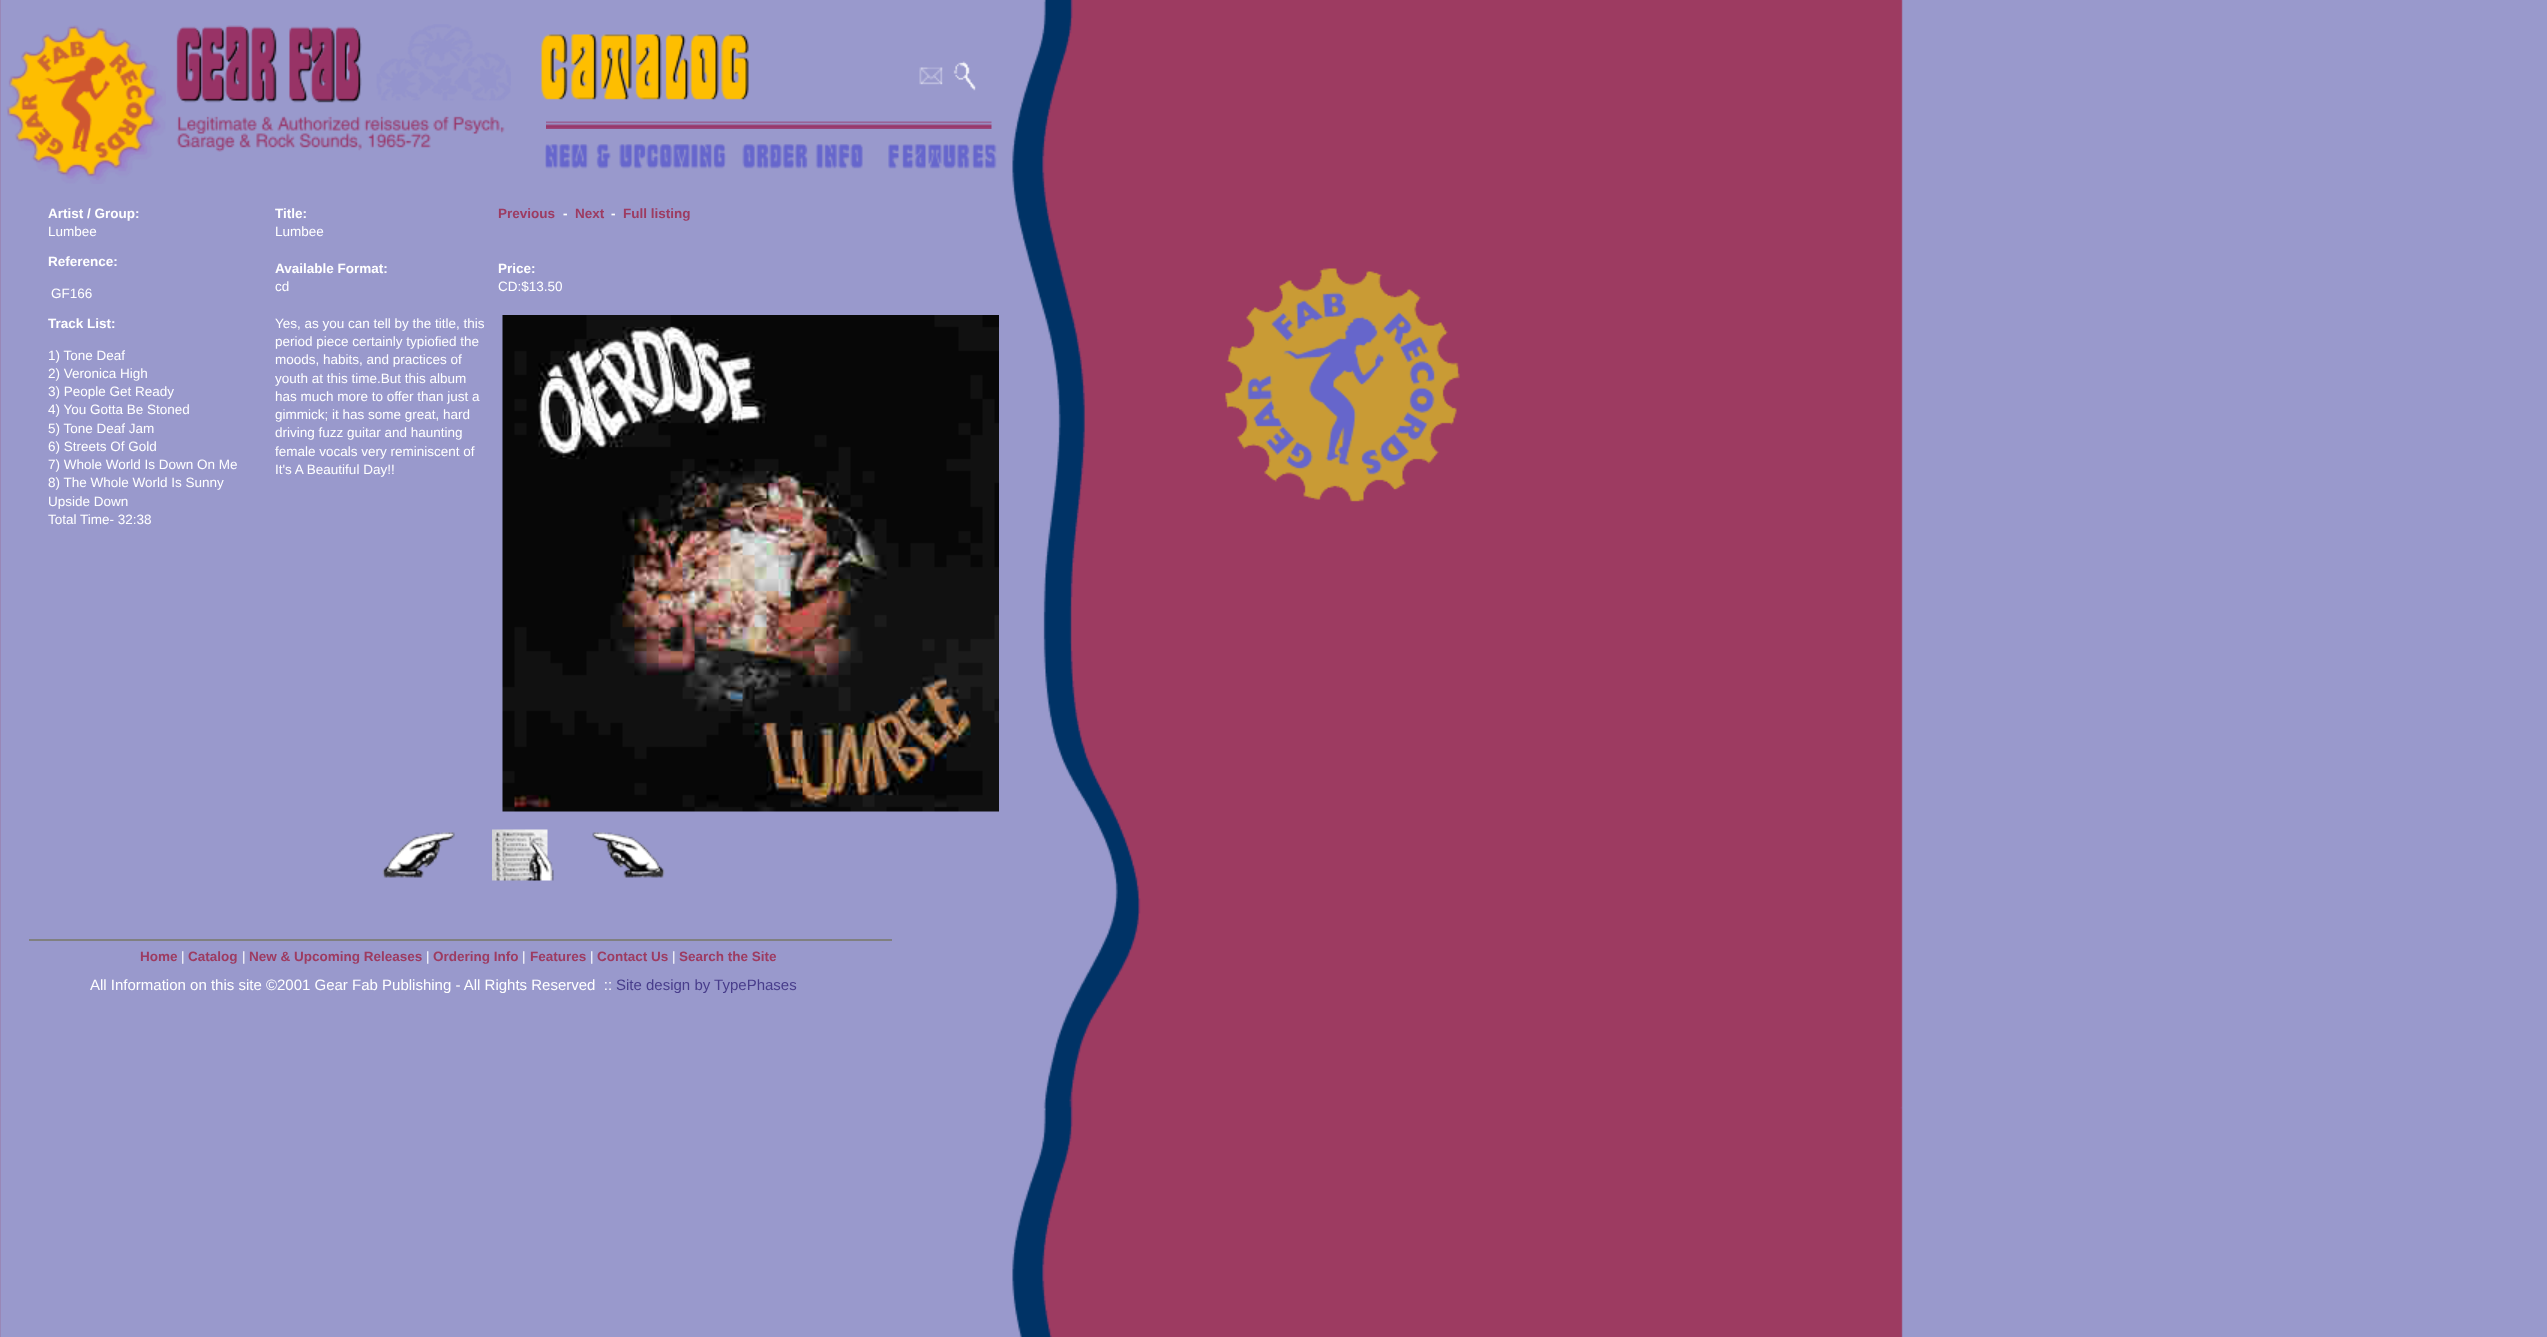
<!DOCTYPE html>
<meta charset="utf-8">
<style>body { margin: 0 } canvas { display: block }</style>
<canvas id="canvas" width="2547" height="1337"></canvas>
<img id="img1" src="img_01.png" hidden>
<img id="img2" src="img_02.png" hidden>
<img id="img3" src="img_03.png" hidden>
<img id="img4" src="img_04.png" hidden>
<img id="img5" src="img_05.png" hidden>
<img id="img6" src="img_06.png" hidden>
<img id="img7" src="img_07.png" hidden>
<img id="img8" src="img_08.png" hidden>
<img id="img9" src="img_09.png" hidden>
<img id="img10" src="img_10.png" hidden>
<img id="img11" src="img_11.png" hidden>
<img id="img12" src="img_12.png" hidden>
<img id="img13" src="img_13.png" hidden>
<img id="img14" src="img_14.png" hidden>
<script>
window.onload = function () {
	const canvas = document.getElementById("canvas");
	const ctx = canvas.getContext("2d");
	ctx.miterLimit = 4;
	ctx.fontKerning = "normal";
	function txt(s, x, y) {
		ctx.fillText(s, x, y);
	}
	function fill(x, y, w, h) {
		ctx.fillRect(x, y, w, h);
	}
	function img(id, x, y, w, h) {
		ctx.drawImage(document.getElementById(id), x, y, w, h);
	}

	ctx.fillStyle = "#FFFFFF";
	fill(0, 0, 2547, 1337);
	img("img1", 0, 0, 2547, 1337);
	img("img2", 6, 25, 160, 159);
	img("img3", 176, 24, 335, 128);
	img("img4", 541, 34, 208, 66);
	img("img5", 919, 67, 24, 18);
	img("img6", 953, 61, 23, 30);
	img("img7", 546, 121, 446, 8);
	img("img8", 545, 144, 181, 25);
	img("img9", 742, 144, 121, 25);
	img("img10", 888, 144, 109, 25);
	img("img11", 502, 315, 497, 497);
	img("img12", 382, 832, 73, 46);
	img("img13", 492, 829, 62, 52);
	img("img14", 592, 832, 73, 46);
	ctx.fillStyle = "#808080";
	fill(29, 939, 863, 2);
	ctx.font = "bold 13.5px Liberation Sans";
	ctx.fillStyle = "#FFFFFF";
	txt("Artist / Group:", 48, 218);
	ctx.font = "13.5px Liberation Sans";
	txt("Lumbee", 48, 236);
	ctx.font = "bold 13.5px Liberation Sans";
	txt("Title:", 275, 218);
	ctx.font = "13.5px Liberation Sans";
	txt("Lumbee", 275, 236);
	ctx.font = "bold 13.5px Liberation Sans";
	ctx.fillStyle = "#9D3B61";
	txt("Previous", 498, 218);
	ctx.fillStyle = "#FFFFFF";
	txt("-", 563, 218);
	ctx.fillStyle = "#9D3B61";
	txt("Next", 575, 218);
	ctx.fillStyle = "#FFFFFF";
	txt("-", 611, 218);
	ctx.fillStyle = "#9D3B61";
	txt("Full listing", 623, 218);
	ctx.fillStyle = "#FFFFFF";
	txt("Reference:", 48, 266);
	ctx.font = "13.5px Liberation Sans";
	txt("GF166", 51, 298);
	ctx.font = "bold 13.5px Liberation Sans";
	txt("Available Format:", 275, 273);
	ctx.font = "13.5px Liberation Sans";
	txt("cd", 275, 291);
	ctx.font = "bold 13.5px Liberation Sans";
	txt("Price:", 498, 273);
	ctx.font = "13.5px Liberation Sans";
	txt("CD:$13.50", 498, 291);
	ctx.font = "bold 13.5px Liberation Sans";
	txt("Track List:", 48, 328);
	ctx.font = "13.5px Liberation Sans";
	txt("1) Tone Deaf", 48, 360);
	txt("2) Veronica High", 48, 378);
	txt("3) People Get Ready", 48, 396);
	txt("4) You Gotta Be Stoned", 48, 414);
	txt("5) Tone Deaf Jam", 48, 433);
	txt("6) Streets Of Gold", 48, 451);
	txt("7) Whole World Is Down On Me", 48, 469);
	txt("8) The Whole World Is Sunny", 48, 487);
	txt("Upside Down", 48, 506);
	txt("Total Time- 32:38", 48, 524);
	txt("Yes, as you can tell by the title, this", 275, 328);
	txt("period piece certainly typiofied the", 275, 346);
	txt("moods, habits, and practices of", 275, 364);
	txt("youth at this time.But this album", 275, 383);
	txt("has much more to offer than just a", 275, 401);
	txt("gimmick; it has some great, hard", 275, 419);
	txt("driving fuzz guitar and haunting", 275, 437);
	txt("female vocals very reminiscent of", 275, 456);
	txt("It's A Beautiful Day!!", 275, 474);
	ctx.font = "bold 13.5px Liberation Sans";
	ctx.fillStyle = "#9D3B61";
	txt("Home", 140, 961);
	ctx.font = "13.5px Liberation Sans";
	ctx.fillStyle = "#FFFFFF";
	txt("|", 181, 961);
	ctx.font = "bold 13.5px Liberation Sans";
	ctx.fillStyle = "#9D3B61";
	txt("Catalog", 188, 961);
	ctx.font = "13.5px Liberation Sans";
	ctx.fillStyle = "#FFFFFF";
	txt("|", 242, 961);
	ctx.font = "bold 13.5px Liberation Sans";
	ctx.fillStyle = "#9D3B61";
	txt("New & Upcoming Releases", 249, 961);
	ctx.font = "13.5px Liberation Sans";
	ctx.fillStyle = "#FFFFFF";
	txt("|", 426, 961);
	ctx.font = "bold 13.5px Liberation Sans";
	ctx.fillStyle = "#9D3B61";
	txt("Ordering Info", 433, 961);
	ctx.font = "13.5px Liberation Sans";
	ctx.fillStyle = "#FFFFFF";
	txt("|", 522, 961);
	ctx.font = "bold 13.5px Liberation Sans";
	ctx.fillStyle = "#9D3B61";
	txt("Features", 530, 961);
	ctx.font = "13.5px Liberation Sans";
	ctx.fillStyle = "#FFFFFF";
	txt("|", 590, 961);
	ctx.font = "bold 13.5px Liberation Sans";
	ctx.fillStyle = "#9D3B61";
	txt("Contact Us", 597, 961);
	ctx.font = "13.5px Liberation Sans";
	ctx.fillStyle = "#FFFFFF";
	txt("|", 672, 961);
	ctx.font = "bold 13.5px Liberation Sans";
	ctx.fillStyle = "#9D3B61";
	txt("Search the Site", 679, 961);
	ctx.font = "15px Liberation Sans";
	ctx.fillStyle = "#FFFFFF";
	txt("All Information on this site ©2001 Gear Fab Publishing - All Rights Reserved  ::", 90, 990);
	ctx.fillStyle = "#483D8B";
	txt("Site design by TypePhases", 616, 990);
};
</script>
